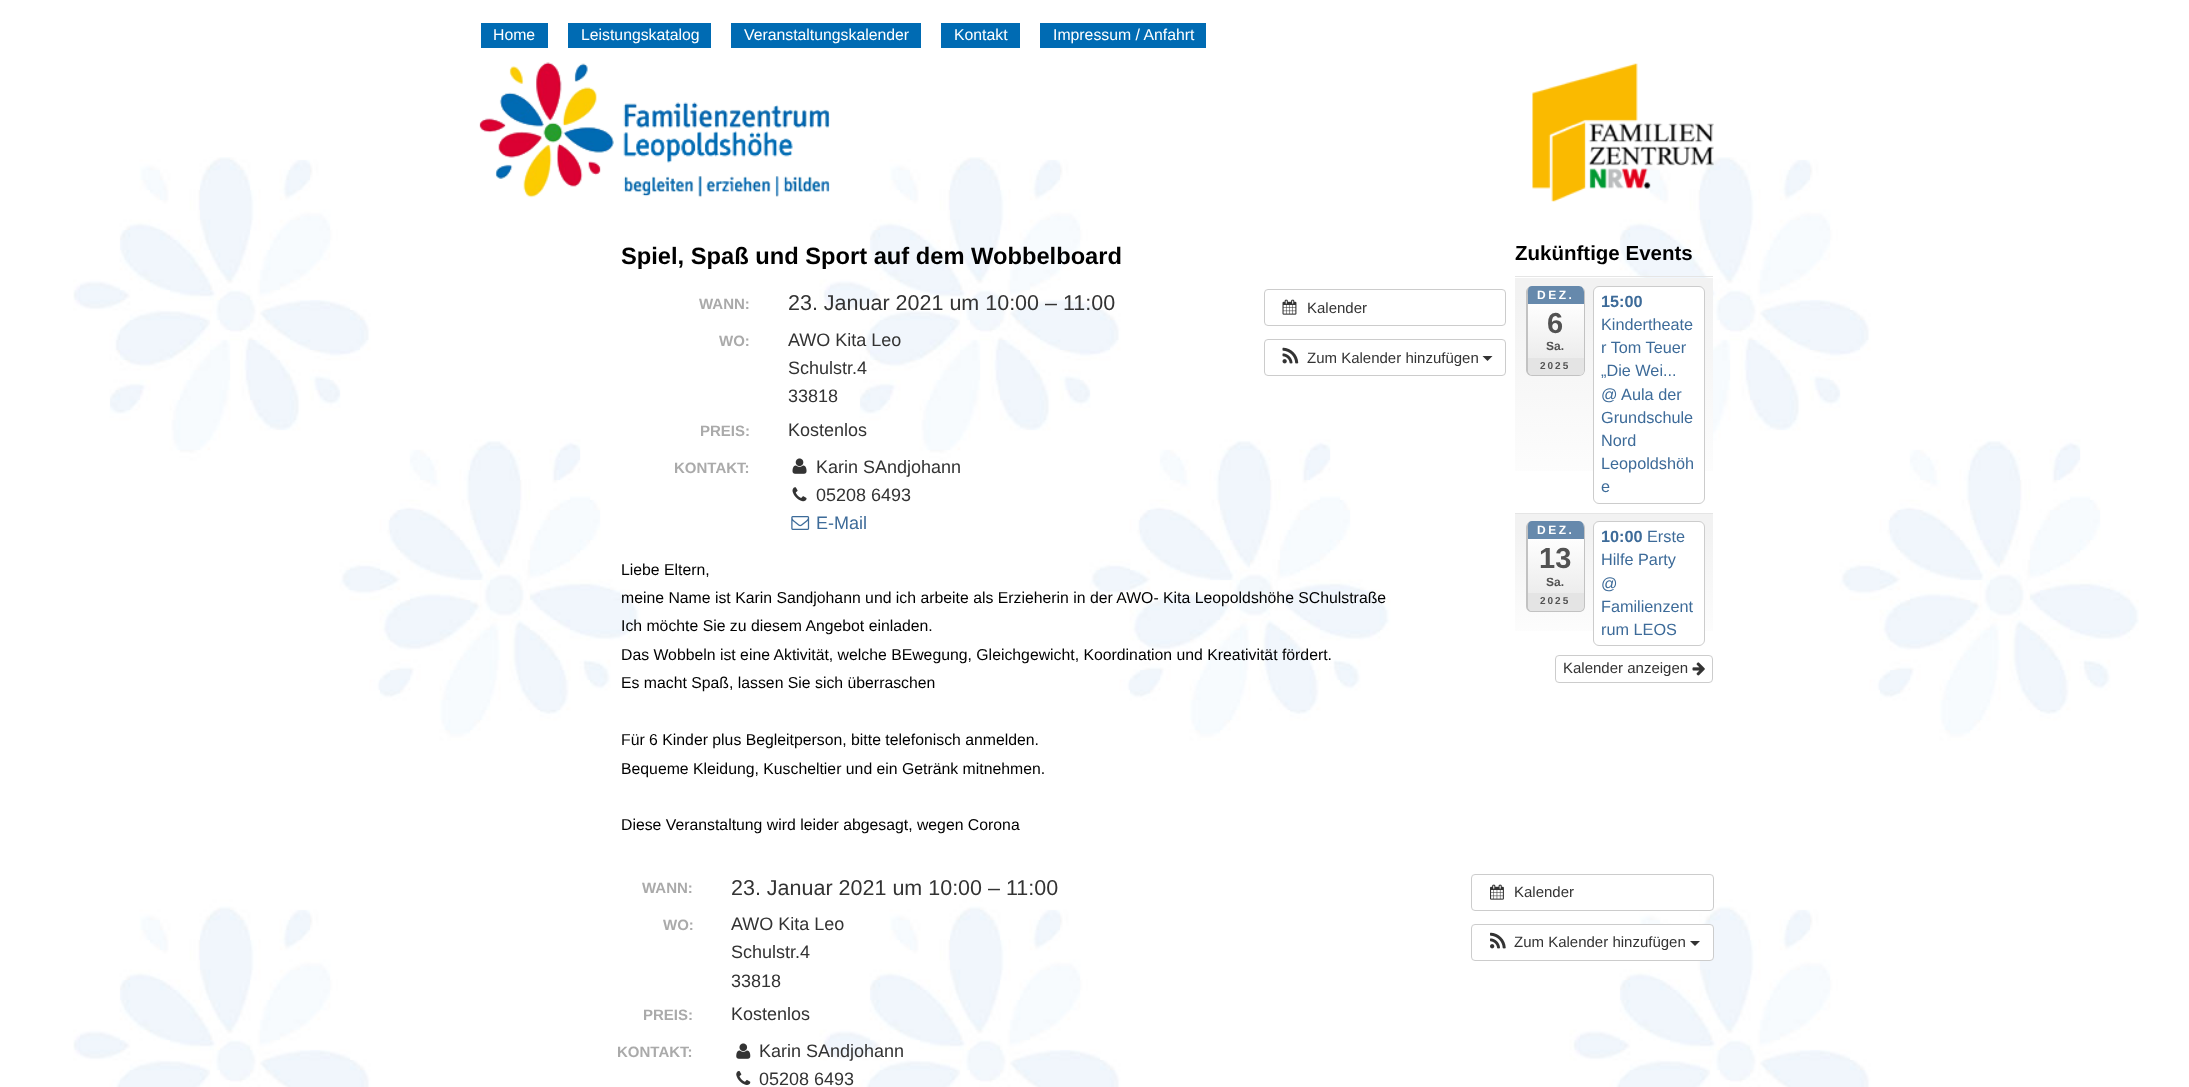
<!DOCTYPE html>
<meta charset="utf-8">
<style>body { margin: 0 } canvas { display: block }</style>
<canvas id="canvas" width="2189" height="1087"></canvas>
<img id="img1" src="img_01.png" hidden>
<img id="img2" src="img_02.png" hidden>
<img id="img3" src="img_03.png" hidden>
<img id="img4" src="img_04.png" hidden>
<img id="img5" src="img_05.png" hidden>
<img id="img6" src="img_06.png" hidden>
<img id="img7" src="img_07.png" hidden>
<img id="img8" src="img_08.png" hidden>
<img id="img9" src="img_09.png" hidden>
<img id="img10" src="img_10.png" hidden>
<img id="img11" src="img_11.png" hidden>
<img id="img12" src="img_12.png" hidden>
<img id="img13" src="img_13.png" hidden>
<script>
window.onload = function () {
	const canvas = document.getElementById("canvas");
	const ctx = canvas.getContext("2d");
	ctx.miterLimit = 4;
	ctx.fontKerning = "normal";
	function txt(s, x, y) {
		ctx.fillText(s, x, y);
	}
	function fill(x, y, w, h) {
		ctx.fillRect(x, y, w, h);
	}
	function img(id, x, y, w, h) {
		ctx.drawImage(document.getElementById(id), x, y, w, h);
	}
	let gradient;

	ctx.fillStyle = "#FFFFFF";
	fill(0, 0, 2189, 1087);
	img("img1", 73, 157, 2066, 930);
	img("img2", 1532, 63, 182, 139);
	ctx.fillStyle = "#006BB3";
	fill(481, 23, 67, 25);
	fill(568, 23, 143, 25);
	fill(731, 23, 190, 25);
	fill(941, 23, 79, 25);
	fill(1040, 23, 166, 25);
	img("img3", 479, 62, 351, 136);
	img("img4", 792, 458, 15, 16);
	img("img5", 792, 487, 15, 15);
	img("img6", 791, 516, 19, 14);
	ctx.beginPath();
	ctx.roundRect(1264.5, 289.5, 241, 36, 3.5);
	ctx.strokeStyle = "#CCCCCC";
	ctx.stroke();
	img("img7", 1282, 299, 15, 16);
	ctx.beginPath();
	ctx.roundRect(1264.5, 339.5, 241, 36, 3.5);
	ctx.stroke();
	img("img8", 1282, 347, 17, 17);
	ctx.fillStyle = "#333333";
	ctx.beginPath();
	ctx.moveTo(1482.5, 356);
	ctx.lineTo(1492.5, 356);
	ctx.lineTo(1487.5, 361);
	ctx.closePath();
	ctx.fill();
	gradient = ctx.createLinearGradient(1614, 278, 1614, 513);
	gradient.addColorStop(0, "#F2F2F2");
	gradient.addColorStop(0.07, "#F2F2F2");
	gradient.addColorStop(1, "#FFFFFF");
	ctx.fillStyle = gradient;
	fill(1515, 278, 198, 193);
	ctx.fillStyle = "#E5E5E5";
	fill(1515, 276, 198, 1);
	ctx.save();
	ctx.beginPath();
	ctx.roundRect(1526, 286, 59, 90, 6);
	ctx.clip();
	gradient = ctx.createLinearGradient(1556, 286, 1556, 375);
	gradient.addColorStop(0, "#FFFFFF");
	gradient.addColorStop(0.16, "#FFFFFF");
	gradient.addColorStop(1, "#E7E7E7");
	ctx.fillStyle = gradient;
	fill(1528, 286, 56, 89);
	ctx.restore();
	ctx.fillStyle = "#C2C2C2";
	ctx.beginPath();
	ctx.moveTo(1532, 286);
	ctx.lineTo(1579, 286);
	ctx.bezierCurveTo(1582, 286, 1585, 289, 1585, 292);
	ctx.lineTo(1585, 370);
	ctx.bezierCurveTo(1585, 373, 1582, 376, 1579, 376);
	ctx.lineTo(1532, 376);
	ctx.bezierCurveTo(1529, 376, 1526, 373, 1526, 370);
	ctx.lineTo(1526, 292);
	ctx.bezierCurveTo(1526, 289, 1529, 286, 1532, 286);
	ctx.closePath();
	ctx.moveTo(1532, 286);
	ctx.lineTo(1579, 286);
	ctx.bezierCurveTo(1582, 286, 1584, 289, 1584, 292);
	ctx.lineTo(1584, 370);
	ctx.bezierCurveTo(1584, 373, 1582, 375, 1579, 375);
	ctx.lineTo(1532, 375);
	ctx.bezierCurveTo(1530, 375, 1528, 373, 1528, 370);
	ctx.lineTo(1528, 292);
	ctx.bezierCurveTo(1528, 289, 1530, 286, 1532, 286);
	ctx.closePath();
	ctx.fill("evenodd");
	ctx.fillStyle = "#6689AC";
	ctx.beginPath();
	ctx.moveTo(1532, 286);
	ctx.lineTo(1579, 286);
	ctx.bezierCurveTo(1582, 286, 1584, 289, 1584, 292);
	ctx.lineTo(1584, 304);
	ctx.lineTo(1528, 304);
	ctx.lineTo(1528, 295);
	ctx.bezierCurveTo(1528, 292, 1527, 286, 1532, 286);
	ctx.closePath();
	ctx.fill();
	ctx.fillStyle = "#E4E4E4";
	ctx.beginPath();
	ctx.moveTo(1528, 358);
	ctx.lineTo(1528, 372);
	ctx.bezierCurveTo(1529, 374, 1531, 375, 1532, 375);
	ctx.lineTo(1579, 375);
	ctx.bezierCurveTo(1582, 375, 1584, 373, 1584, 370);
	ctx.lineTo(1584, 358);
	ctx.closePath();
	ctx.fill();
	ctx.fillStyle = "#FFFFFF";
	ctx.beginPath();
	ctx.roundRect(1593.5, 286.5, 111, 217, 5.5);
	ctx.fill();
	ctx.stroke();
	gradient = ctx.createLinearGradient(1614, 514, 1614, 655);
	gradient.addColorStop(0, "#F2F2F2");
	gradient.addColorStop(0.12, "#F2F2F2");
	gradient.addColorStop(1, "#FFFFFF");
	ctx.fillStyle = gradient;
	fill(1515, 514, 198, 117);
	ctx.fillStyle = "#E5E5E5";
	fill(1515, 513, 198, 1);
	ctx.save();
	ctx.beginPath();
	ctx.roundRect(1526, 521, 59, 92, 6);
	ctx.clip();
	gradient = ctx.createLinearGradient(1556, 521, 1556, 611);
	gradient.addColorStop(0, "#FFFFFF");
	gradient.addColorStop(0.16, "#FFFFFF");
	gradient.addColorStop(1, "#E7E7E7");
	ctx.fillStyle = gradient;
	fill(1528, 521, 56, 90);
	ctx.restore();
	ctx.fillStyle = "#C2C2C2";
	ctx.beginPath();
	ctx.moveTo(1532, 521);
	ctx.lineTo(1579, 521);
	ctx.bezierCurveTo(1582, 521, 1585, 524, 1585, 528);
	ctx.lineTo(1585, 606);
	ctx.bezierCurveTo(1585, 610, 1582, 612, 1579, 612);
	ctx.lineTo(1532, 612);
	ctx.bezierCurveTo(1529, 612, 1526, 610, 1526, 606);
	ctx.lineTo(1526, 528);
	ctx.bezierCurveTo(1526, 524, 1529, 521, 1532, 521);
	ctx.closePath();
	ctx.moveTo(1532, 521);
	ctx.lineTo(1579, 521);
	ctx.bezierCurveTo(1582, 521, 1584, 524, 1584, 528);
	ctx.lineTo(1584, 606);
	ctx.bezierCurveTo(1584, 609, 1582, 611, 1579, 611);
	ctx.lineTo(1532, 611);
	ctx.bezierCurveTo(1530, 611, 1528, 609, 1528, 606);
	ctx.lineTo(1528, 528);
	ctx.bezierCurveTo(1528, 524, 1530, 521, 1532, 521);
	ctx.closePath();
	ctx.fill("evenodd");
	ctx.fillStyle = "#6689AC";
	ctx.beginPath();
	ctx.moveTo(1532, 521);
	ctx.lineTo(1579, 521);
	ctx.bezierCurveTo(1582, 521, 1584, 524, 1584, 528);
	ctx.lineTo(1584, 539);
	ctx.lineTo(1528, 539);
	ctx.lineTo(1528, 530);
	ctx.bezierCurveTo(1528, 527, 1527, 521, 1532, 521);
	ctx.closePath();
	ctx.fill();
	ctx.fillStyle = "#E4E4E4";
	ctx.beginPath();
	ctx.moveTo(1528, 593);
	ctx.lineTo(1584, 593);
	ctx.lineTo(1584, 606);
	ctx.bezierCurveTo(1584, 608, 1582, 610, 1580, 611);
	ctx.lineTo(1531, 611);
	ctx.bezierCurveTo(1530, 611, 1529, 610, 1528, 608);
	ctx.closePath();
	ctx.fill();
	ctx.fillStyle = "#FFFFFF";
	ctx.beginPath();
	ctx.roundRect(1593.5, 521.5, 111, 124, 5.5);
	ctx.fill();
	ctx.stroke();
	ctx.beginPath();
	ctx.roundRect(1555.5, 655.5, 157, 27, 3.5);
	ctx.stroke();
	img("img9", 1692, 662, 13, 14);
	img("img10", 736, 1043, 15, 16);
	img("img11", 736, 1071, 15, 14);
	ctx.beginPath();
	ctx.roundRect(1471.5, 874.5, 242, 36, 3.5);
	ctx.fill();
	ctx.stroke();
	img("img12", 1490, 884, 14, 16);
	ctx.beginPath();
	ctx.roundRect(1471.5, 924.5, 242, 36, 3.5);
	ctx.fill();
	ctx.stroke();
	img("img13", 1490, 932, 16, 17);
	ctx.fillStyle = "#333333";
	ctx.beginPath();
	ctx.moveTo(1690, 941);
	ctx.lineTo(1700, 941);
	ctx.lineTo(1695, 946);
	ctx.closePath();
	ctx.fill();
	ctx.font = "15.8px Liberation Sans";
	ctx.fillStyle = "#FFFFFF";
	txt("Home", 493, 40);
	txt("Leistungskatalog", 581, 40);
	txt("Veranstaltungskalender", 744, 40);
	txt("Kontakt", 954, 40);
	txt("Impressum / Anfahrt", 1053, 40);
	ctx.font = "bold 23.7px Liberation Sans";
	ctx.fillStyle = "#000000";
	txt("Spiel, Spaß und Sport auf dem Wobbelboard", 621, 264);
	ctx.font = "bold 15px Liberation Sans";
	ctx.fillStyle = "#AAAAAA";
	txt("WANN:", 699, 309);
	ctx.font = "21.5px Liberation Sans";
	ctx.fillStyle = "#333333";
	txt("23. Januar 2021 um 10:00 – 11:00", 788, 310);
	ctx.font = "bold 15px Liberation Sans";
	ctx.fillStyle = "#AAAAAA";
	txt("WO:", 719, 346);
	ctx.font = "18px Liberation Sans";
	ctx.fillStyle = "#333333";
	txt("AWO Kita Leo", 788, 346);
	txt("Schulstr.4", 788, 374);
	txt("33818", 788, 402);
	ctx.font = "bold 15px Liberation Sans";
	ctx.fillStyle = "#AAAAAA";
	txt("PREIS:", 700, 436);
	ctx.font = "18px Liberation Sans";
	ctx.fillStyle = "#333333";
	txt("Kostenlos", 788, 436);
	ctx.font = "bold 15px Liberation Sans";
	ctx.fillStyle = "#AAAAAA";
	txt("KONTAKT:", 674, 473);
	ctx.font = "18px Liberation Sans";
	ctx.fillStyle = "#333333";
	txt("Karin SAndjohann", 816, 473);
	txt("05208 6493", 816, 501);
	ctx.fillStyle = "#3D6B99";
	txt("E-Mail", 816, 529);
	ctx.font = "15px Liberation Sans";
	ctx.fillStyle = "#333333";
	txt("Kalender", 1307, 313);
	txt("Zum Kalender hinzufügen", 1307, 363);
	ctx.font = "15.8px Liberation Sans";
	ctx.fillStyle = "#000000";
	txt("Liebe Eltern,", 621, 575);
	txt("meine Name ist Karin Sandjohann und ich arbeite als Erzieherin in der AWO- Kita Leopoldshöhe SChulstraße", 621, 603);
	txt("Ich möchte Sie zu diesem Angebot einladen.", 621, 631);
	txt("Das Wobbeln ist eine Aktivität, welche BEwegung, Gleichgewicht, Koordination und Kreativität fördert.", 621, 660);
	txt("Es macht Spaß, lassen Sie sich überraschen", 621, 688);
	txt("Für 6 Kinder plus Begleitperson, bitte telefonisch anmelden.", 621, 745);
	txt("Bequeme Kleidung, Kuscheltier und ein Getränk mitnehmen.", 621, 774);
	txt("Diese Veranstaltung wird leider abgesagt, wegen Corona", 621, 830);
	ctx.font = "bold 20.5px Liberation Sans";
	txt("Zukünftige Events", 1515, 260);
	ctx.letterSpacing = "2.5px";
	ctx.font = "bold 12px Liberation Sans";
	ctx.fillStyle = "#FFFFFF";
	txt("DEZ.", 1537, 299);
	ctx.letterSpacing = "0px";
	ctx.font = "bold 29px Liberation Sans";
	ctx.fillStyle = "#525252";
	txt("6", 1547, 333);
	ctx.font = "bold 12px Liberation Sans";
	txt("Sa.", 1546, 350);
	ctx.letterSpacing = "2px";
	ctx.font = "bold 10px Liberation Sans";
	txt("2025", 1540, 369);
	ctx.letterSpacing = "0px";
	ctx.font = "bold 16.25px Liberation Sans";
	ctx.fillStyle = "#3D6B99";
	txt("15:00", 1601, 307);
	ctx.font = "16.25px Liberation Sans";
	txt("Kindertheate", 1601, 330);
	txt("r Tom Teuer", 1601, 353);
	txt("„Die Wei...", 1601, 376);
	txt("@ Aula der", 1601, 400);
	txt("Grundschule", 1601, 423);
	txt("Nord", 1601, 446);
	txt("Leopoldshöh", 1601, 469);
	txt("e", 1601, 492);
	ctx.letterSpacing = "2.5px";
	ctx.font = "bold 12px Liberation Sans";
	ctx.fillStyle = "#FFFFFF";
	txt("DEZ.", 1537, 534);
	ctx.letterSpacing = "0px";
	ctx.font = "bold 29px Liberation Sans";
	ctx.fillStyle = "#525252";
	txt("13", 1539, 568);
	ctx.font = "bold 12px Liberation Sans";
	txt("Sa.", 1546, 586);
	ctx.letterSpacing = "2px";
	ctx.font = "bold 10px Liberation Sans";
	txt("2025", 1540, 604);
	ctx.letterSpacing = "0px";
	ctx.font = "bold 16.25px Liberation Sans";
	ctx.fillStyle = "#3D6B99";
	txt("10:00", 1601, 542);
	ctx.font = "16.25px Liberation Sans";
	txt("Erste", 1647, 542);
	txt("Hilfe Party", 1601, 565);
	txt("@", 1601, 589);
	txt("Familienzent", 1601, 612);
	txt("rum LEOS", 1601, 635);
	ctx.font = "15px Liberation Sans";
	ctx.fillStyle = "#333333";
	txt("Kalender anzeigen", 1563, 673);
	ctx.font = "bold 15px Liberation Sans";
	ctx.fillStyle = "#AAAAAA";
	txt("WANN:", 642, 893);
	ctx.font = "21.5px Liberation Sans";
	ctx.fillStyle = "#333333";
	txt("23. Januar 2021 um 10:00 – 11:00", 731, 895);
	ctx.font = "bold 15px Liberation Sans";
	ctx.fillStyle = "#AAAAAA";
	txt("WO:", 663, 930);
	ctx.font = "18px Liberation Sans";
	ctx.fillStyle = "#333333";
	txt("AWO Kita Leo", 731, 930);
	txt("Schulstr.4", 731, 958);
	txt("33818", 731, 987);
	ctx.font = "bold 15px Liberation Sans";
	ctx.fillStyle = "#AAAAAA";
	txt("PREIS:", 643, 1020);
	ctx.font = "18px Liberation Sans";
	ctx.fillStyle = "#333333";
	txt("Kostenlos", 731, 1020);
	ctx.font = "bold 15px Liberation Sans";
	ctx.fillStyle = "#AAAAAA";
	txt("KONTAKT:", 617, 1057);
	ctx.font = "18px Liberation Sans";
	ctx.fillStyle = "#333333";
	txt("Karin SAndjohann", 759, 1057);
	txt("05208 6493", 759, 1085);
	ctx.font = "15px Liberation Sans";
	txt("Kalender", 1514, 897);
	txt("Zum Kalender hinzufügen", 1514, 947);
};
</script>
